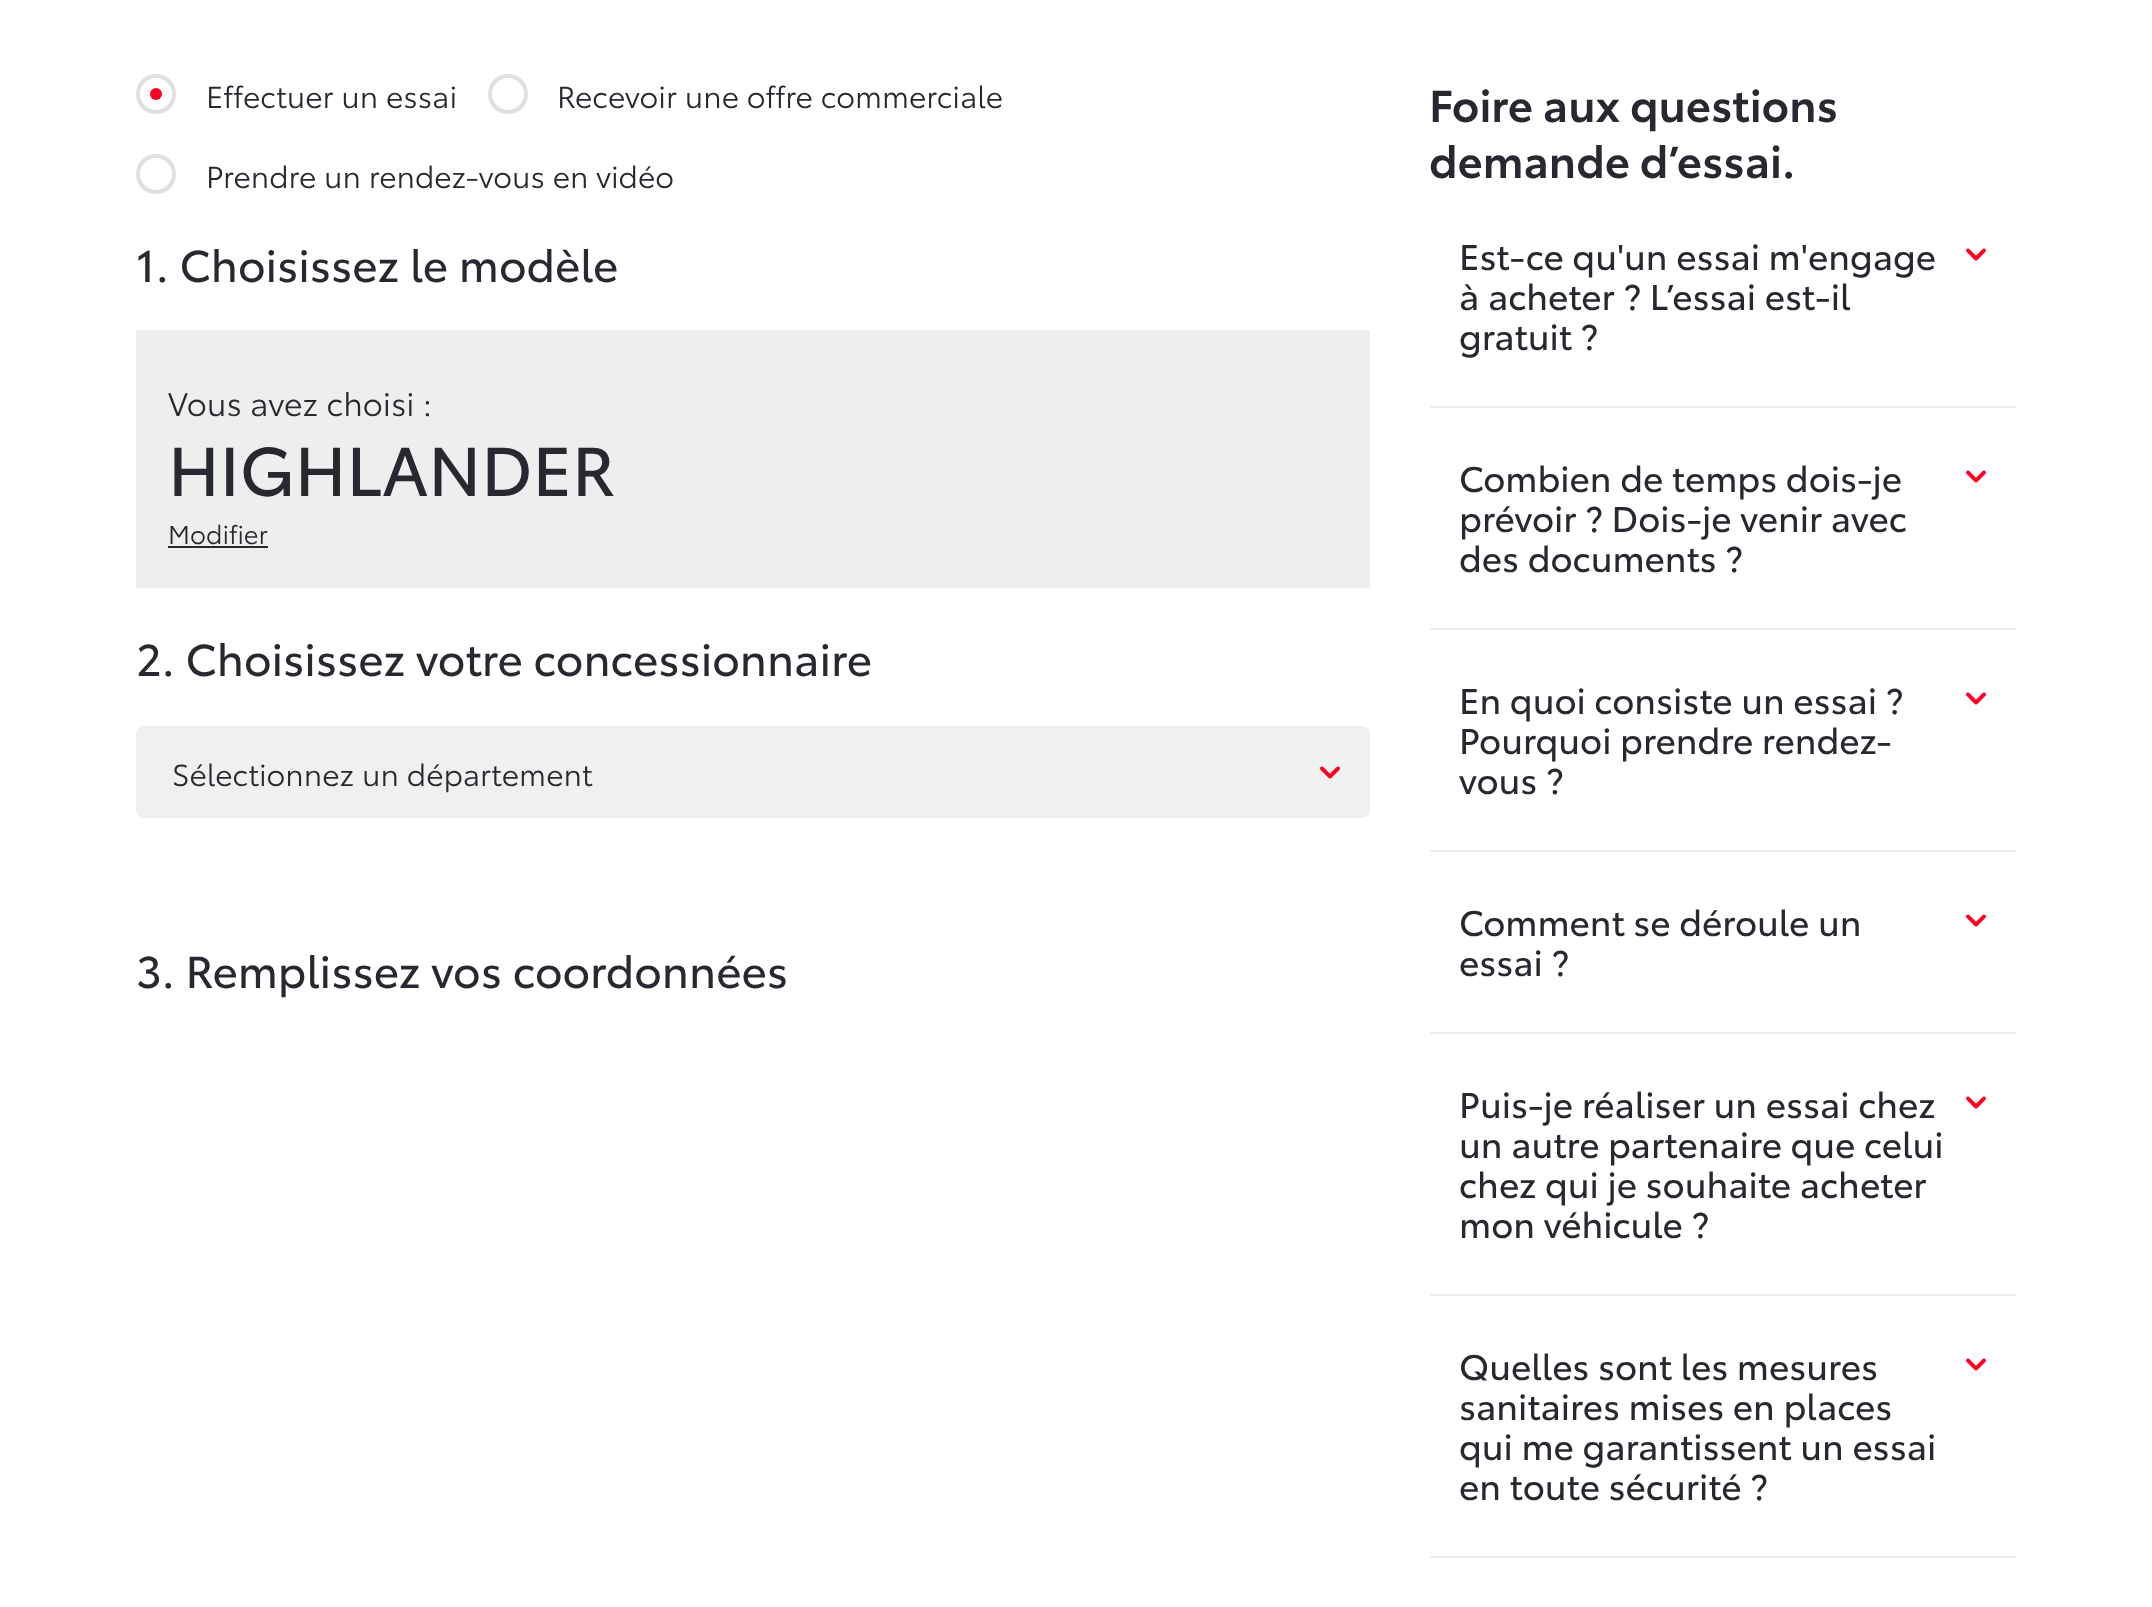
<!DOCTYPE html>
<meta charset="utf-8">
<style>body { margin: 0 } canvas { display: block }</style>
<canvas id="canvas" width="2152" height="1607"></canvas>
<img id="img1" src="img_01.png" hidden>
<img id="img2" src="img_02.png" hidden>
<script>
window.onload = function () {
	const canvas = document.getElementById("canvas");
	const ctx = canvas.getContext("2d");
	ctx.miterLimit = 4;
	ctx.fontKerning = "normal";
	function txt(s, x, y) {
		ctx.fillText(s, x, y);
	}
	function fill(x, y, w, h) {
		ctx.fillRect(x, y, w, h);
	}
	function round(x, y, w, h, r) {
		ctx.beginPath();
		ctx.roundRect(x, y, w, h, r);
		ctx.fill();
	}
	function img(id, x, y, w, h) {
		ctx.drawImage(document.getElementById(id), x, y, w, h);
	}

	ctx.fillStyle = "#FFFFFF";
	fill(0, 0, 2152, 1607);
	ctx.beginPath();
	ctx.arc(156, 94, 18, 0, Math.PI * 2);
	ctx.strokeStyle = "#E0E0E0";
	ctx.lineWidth = 4;
	ctx.stroke();
	ctx.fillStyle = "#FF0022";
	ctx.beginPath();
	ctx.arc(156, 94, 6, 0, Math.PI * 2);
	ctx.fill();
	ctx.beginPath();
	ctx.arc(508, 94, 18, 0, Math.PI * 2);
	ctx.stroke();
	ctx.beginPath();
	ctx.arc(156, 174, 18, 0, Math.PI * 2);
	ctx.stroke();
	ctx.fillStyle = "#EEEEEE";
	fill(136, 330, 1234, 258);
	ctx.fillStyle = "#282830";
	fill(168, 546, 100, 2);
	ctx.fillStyle = "#EFF0F0";
	round(136, 726, 1234, 92, 8);
	img("img1", 1320, 766, 20, 13);
	ctx.fillStyle = "#EDEDEE";
	fill(1430, 406, 586, 2);
	img("img2", 1966, 248, 20, 13);
	fill(1430, 628, 586, 2);
	img("img2", 1966, 470, 20, 13);
	fill(1430, 850, 586, 2);
	img("img2", 1966, 692, 20, 13);
	fill(1430, 1032, 586, 2);
	img("img2", 1966, 914, 20, 13);
	fill(1430, 1294, 586, 2);
	img("img2", 1966, 1096, 20, 13);
	fill(1430, 1556, 586, 2);
	img("img2", 1966, 1358, 20, 13);
	ctx.font = "30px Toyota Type";
	ctx.fillStyle = "#282830";
	txt("Effectuer un essai", 206, 108);
	txt("Recevoir une offre commerciale", 557, 108);
	txt("Prendre un rendez-vous en vidéo", 206, 188);
	ctx.font = "44px 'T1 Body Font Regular'";
	txt("1. Choisissez le modèle", 136, 282);
	ctx.font = "32px Toyota Type";
	txt("Vous avez choisi :", 168, 416);
	ctx.font = "68px 'T1 Body Font Regular'";
	txt("HIGHLANDER", 168, 496);
	ctx.font = "25.5px Toyota Type";
	txt("Modifier", 168, 544);
	ctx.font = "44px 'T1 Body Font Regular'";
	txt("2. Choisissez votre concessionnaire", 136, 676);
	ctx.font = "30px Toyota Type";
	txt("Sélectionnez un département", 172, 786);
	ctx.font = "44px 'T1 Body Font Regular'";
	txt("3. Remplissez vos coordonnées", 136, 988);
	ctx.font = "600 44px Toyota Type";
	txt("Foire aux questions", 1429, 122);
	txt("demande d’essai.", 1429, 178);
	ctx.font = "35.25px 'T1 Body Font Regular'";
	txt("Est-ce qu'un essai m'engage", 1459, 270);
	txt("à acheter ? L’essai est-il", 1459, 310);
	txt("gratuit ?", 1459, 350);
	txt("Combien de temps dois-je", 1459, 492);
	txt("prévoir ? Dois-je venir avec", 1459, 532);
	txt("des documents ?", 1459, 572);
	txt("En quoi consiste un essai ?", 1459, 714);
	txt("Pourquoi prendre rendez-", 1459, 754);
	txt("vous ?", 1459, 794);
	txt("Comment se déroule un", 1459, 936);
	txt("essai ?", 1459, 976);
	txt("Puis-je réaliser un essai chez", 1459, 1118);
	txt("un autre partenaire que celui", 1459, 1158);
	txt("chez qui je souhaite acheter", 1459, 1198);
	txt("mon véhicule ?", 1459, 1238);
	txt("Quelles sont les mesures", 1459, 1380);
	txt("sanitaires mises en places", 1459, 1420);
	txt("qui me garantissent un essai", 1459, 1460);
	txt("en toute sécurité ?", 1459, 1500);
};
</script>
